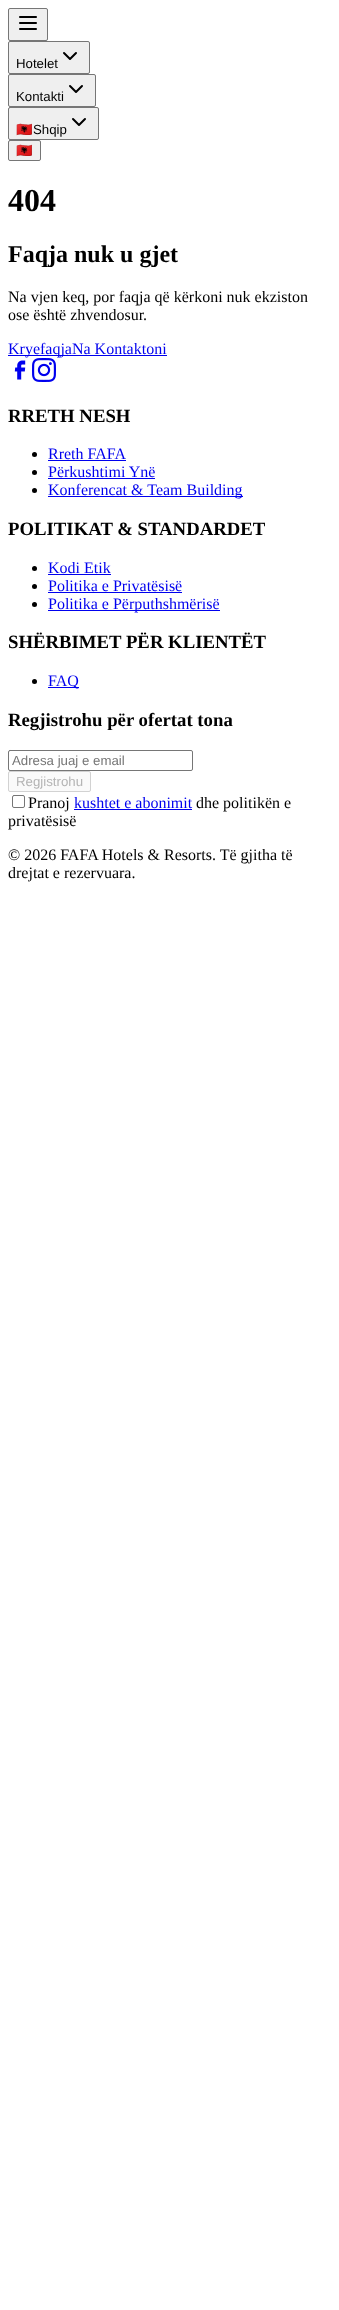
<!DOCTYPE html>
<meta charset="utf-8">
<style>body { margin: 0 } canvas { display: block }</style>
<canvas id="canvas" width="339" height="2310"></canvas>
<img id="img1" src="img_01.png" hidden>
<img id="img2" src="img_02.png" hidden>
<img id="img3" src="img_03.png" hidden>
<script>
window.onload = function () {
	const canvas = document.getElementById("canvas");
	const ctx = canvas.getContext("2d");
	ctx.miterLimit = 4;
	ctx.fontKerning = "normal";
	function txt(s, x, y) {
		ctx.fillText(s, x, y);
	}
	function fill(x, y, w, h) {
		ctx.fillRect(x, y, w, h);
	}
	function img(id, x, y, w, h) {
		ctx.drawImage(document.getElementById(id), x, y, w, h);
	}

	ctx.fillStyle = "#FFFFFF";
	fill(0, 0, 339, 2310);
	ctx.fillStyle = "#EFEFEF";
	ctx.beginPath();
	ctx.roundRect(8.5, 8.5, 39, 32, 1.5);
	ctx.fill();
	ctx.strokeStyle = "#767676";
	ctx.stroke();
	img("img1", 19, 16, 18, 14);
	ctx.beginPath();
	ctx.roundRect(8.5, 41.5, 81, 32, 1.5);
	ctx.fill();
	ctx.stroke();
	ctx.beginPath();
	ctx.roundRect(8.5, 74.5, 87, 32, 1.5);
	ctx.fill();
	ctx.stroke();
	ctx.beginPath();
	ctx.moveTo(64, 53);
	ctx.lineTo(70, 59);
	ctx.lineTo(76, 53);
	ctx.moveTo(70, 86);
	ctx.lineTo(76, 92);
	ctx.lineTo(82, 86);
	ctx.strokeStyle = "#000000";
	ctx.lineWidth = 2;
	ctx.lineCap = "round";
	ctx.lineJoin = "round";
	ctx.stroke();
	ctx.beginPath();
	ctx.roundRect(8.5, 107.5, 90, 32, 1.5);
	ctx.fill();
	ctx.strokeStyle = "#767676";
	ctx.lineWidth = 1;
	ctx.lineJoin = "miter";
	ctx.stroke();
	ctx.beginPath();
	ctx.moveTo(73, 119);
	ctx.lineTo(79, 125);
	ctx.lineTo(85, 119);
	ctx.strokeStyle = "#000000";
	ctx.lineWidth = 2;
	ctx.lineJoin = "round";
	ctx.stroke();
	ctx.beginPath();
	ctx.roundRect(8.5, 140.5, 32, 20, 1.5);
	ctx.fill();
	ctx.strokeStyle = "#767676";
	ctx.lineWidth = 1;
	ctx.lineJoin = "miter";
	ctx.stroke();
	ctx.fillStyle = "#0000EE";
	fill(8, 355, 159, 1);
	img("img2", 14, 360, 12, 20);
	img("img3", 32, 358, 24, 24);
	ctx.fillStyle = "#000000";
	ctx.beginPath();
	ctx.arc(34.5, 454.5, 2.5, 0, Math.PI * 2);
	ctx.fill();
	ctx.fillStyle = "#0000EE";
	fill(48, 460, 78, 1);
	ctx.fillStyle = "#000000";
	ctx.beginPath();
	ctx.arc(34.5, 472.5, 2.5, 0, Math.PI * 2);
	ctx.fill();
	ctx.fillStyle = "#0000EE";
	fill(48, 478, 107, 1);
	ctx.fillStyle = "#000000";
	ctx.beginPath();
	ctx.arc(34.5, 490.5, 2.5, 0, Math.PI * 2);
	ctx.fill();
	ctx.fillStyle = "#0000EE";
	fill(48, 496, 195, 1);
	ctx.fillStyle = "#000000";
	ctx.beginPath();
	ctx.arc(34.5, 568.5, 2.5, 0, Math.PI * 2);
	ctx.fill();
	ctx.fillStyle = "#0000EE";
	fill(48, 574, 63, 1);
	ctx.fillStyle = "#000000";
	ctx.beginPath();
	ctx.arc(34.5, 586.5, 2.5, 0, Math.PI * 2);
	ctx.fill();
	ctx.fillStyle = "#0000EE";
	fill(48, 592, 134, 1);
	ctx.fillStyle = "#000000";
	ctx.beginPath();
	ctx.arc(34.5, 604.5, 2.5, 0, Math.PI * 2);
	ctx.fill();
	ctx.fillStyle = "#0000EE";
	fill(48, 610, 172, 1);
	ctx.fillStyle = "#000000";
	ctx.beginPath();
	ctx.arc(34.5, 681.5, 2.5, 0, Math.PI * 2);
	ctx.fill();
	ctx.fillStyle = "#0000EE";
	fill(48, 687, 31, 1);
	ctx.beginPath();
	ctx.roundRect(8.5, 750.5, 184, 20, 1.5);
	ctx.stroke();
	ctx.fillStyle = "#FAFAFA";
	ctx.beginPath();
	ctx.roundRect(8.5, 771.5, 82, 20, 1.5);
	ctx.fill();
	ctx.strokeStyle = "#D2D2D2";
	ctx.stroke();
	ctx.beginPath();
	ctx.roundRect(12.5, 795.5, 12, 12, 1.5);
	ctx.strokeStyle = "#767676";
	ctx.stroke();
	ctx.fillStyle = "#0000EE";
	fill(74, 809, 118, 1);
	ctx.font = "13.25px Liberation Sans";
	ctx.fillStyle = "#000000";
	txt("Hotelet", 16, 68);
	txt("Kontakti", 16, 101);
	ctx.font = "13.25px Noto Color Emoji";
	txt("🇦🇱", 16, 134);
	ctx.font = "13.25px Liberation Sans";
	txt("Shqip", 33, 134);
	ctx.font = "13.25px Noto Color Emoji";
	txt("🇦🇱", 16, 155);
	ctx.font = "bold 32px Liberation Serif";
	txt("404", 8, 211);
	ctx.font = "bold 24px Liberation Serif";
	txt("Faqja nuk u gjet", 8, 262);
	ctx.font = "16px Liberation Serif";
	txt("Na vjen keq, por faqja që kërkoni nuk ekziston", 8, 302);
	txt("ose është zhvendosur.", 8, 320);
	ctx.fillStyle = "#0000EE";
	txt("KryefaqjaNa Kontaktoni", 8, 354);
	ctx.font = "bold 18.75px Liberation Serif";
	ctx.fillStyle = "#000000";
	txt("RRETH NESH", 8, 422);
	ctx.font = "16px Liberation Serif";
	ctx.fillStyle = "#0000EE";
	txt("Rreth FAFA", 48, 459);
	txt("Përkushtimi Ynë", 48, 477);
	txt("Konferencat & Team Building", 48, 495);
	ctx.font = "bold 18.75px Liberation Serif";
	ctx.fillStyle = "#000000";
	txt("POLITIKAT & STANDARDET", 8, 535);
	ctx.font = "16px Liberation Serif";
	ctx.fillStyle = "#0000EE";
	txt("Kodi Etik", 48, 573);
	txt("Politika e Privatësisë", 48, 591);
	txt("Politika e Përputhshmërisë", 48, 609);
	ctx.font = "bold 18.75px Liberation Serif";
	ctx.fillStyle = "#000000";
	txt("SHËRBIMET PËR KLIENTËT", 8, 648);
	ctx.font = "16px Liberation Serif";
	ctx.fillStyle = "#0000EE";
	txt("FAQ", 48, 686);
	ctx.font = "bold 18.75px Liberation Serif";
	ctx.fillStyle = "#000000";
	txt("Regjistrohu për ofertat tona", 8, 726);
	ctx.font = "13.25px Liberation Sans";
	ctx.fillStyle = "#757575";
	txt("Adresa juaj e email", 12, 765);
	ctx.fillStyle = "#B4B4B4";
	txt("Regjistrohu", 16, 786);
	ctx.font = "16px Liberation Serif";
	ctx.fillStyle = "#000000";
	txt("Pranoj", 28, 808);
	ctx.fillStyle = "#0000EE";
	txt("kushtet e abonimit", 74, 808);
	ctx.fillStyle = "#000000";
	txt("dhe politikën e", 196, 808);
	txt("privatësisë", 8, 826);
	txt("© 2026 FAFA Hotels & Resorts. Të gjitha të", 8, 860);
	txt("drejtat e rezervuara.", 8, 878);
};
</script>
